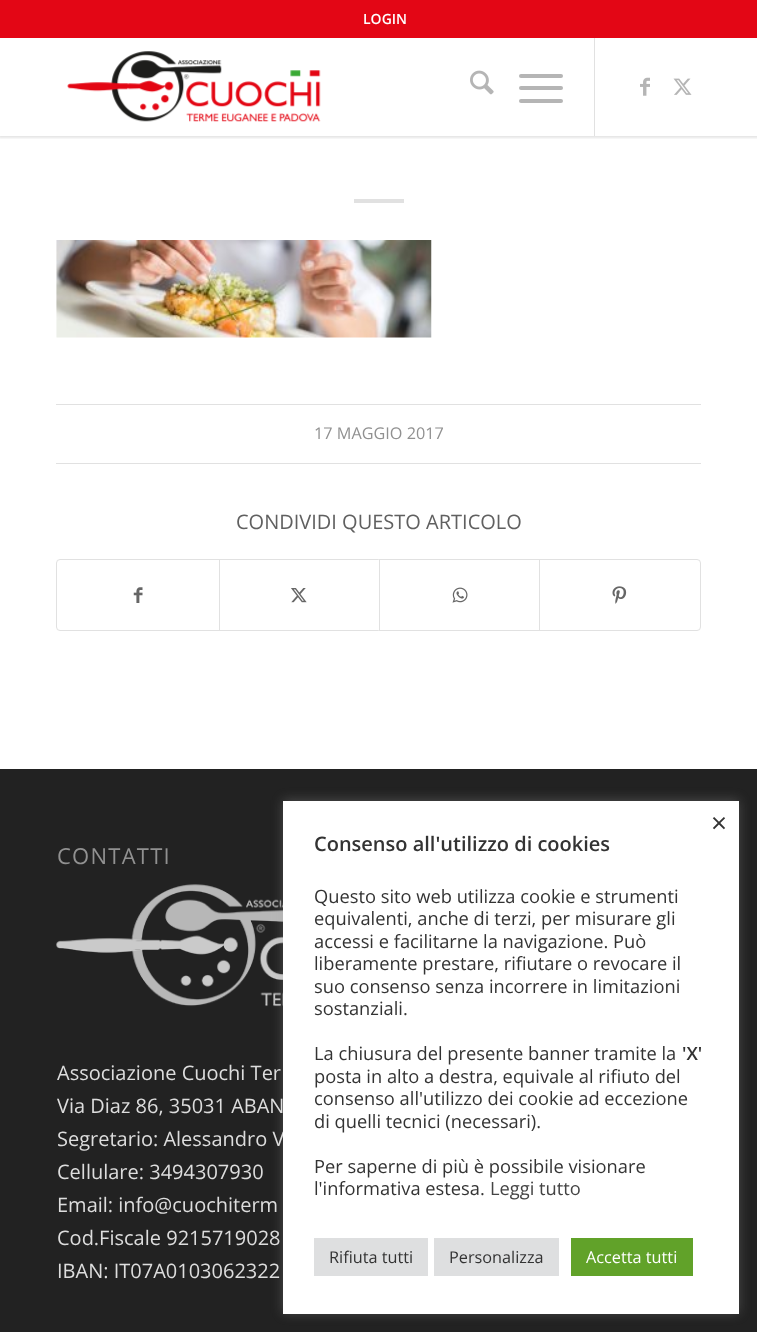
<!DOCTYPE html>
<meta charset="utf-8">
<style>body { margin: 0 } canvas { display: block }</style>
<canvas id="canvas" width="757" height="1332"></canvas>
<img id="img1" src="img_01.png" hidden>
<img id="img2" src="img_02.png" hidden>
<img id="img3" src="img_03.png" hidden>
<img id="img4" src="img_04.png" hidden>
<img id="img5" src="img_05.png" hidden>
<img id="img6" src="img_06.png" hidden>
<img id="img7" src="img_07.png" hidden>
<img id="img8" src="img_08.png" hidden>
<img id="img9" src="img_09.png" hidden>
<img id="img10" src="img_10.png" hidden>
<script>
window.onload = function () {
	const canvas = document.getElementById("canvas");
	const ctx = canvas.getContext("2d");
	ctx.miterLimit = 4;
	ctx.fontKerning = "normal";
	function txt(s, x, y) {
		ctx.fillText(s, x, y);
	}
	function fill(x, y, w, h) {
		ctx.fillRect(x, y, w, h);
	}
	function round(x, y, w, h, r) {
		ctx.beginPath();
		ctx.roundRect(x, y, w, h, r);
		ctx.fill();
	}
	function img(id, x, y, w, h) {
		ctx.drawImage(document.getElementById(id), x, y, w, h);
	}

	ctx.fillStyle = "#FFFFFF";
	fill(0, 0, 757, 1332);
	ctx.save();
	ctx.beginPath();
	ctx.rect(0, 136, 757, 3);
	ctx.clip();
	ctx.fillStyle = "rgba(0, 0, 0, 0.1)";
	ctx.filter = "blur(1px)";
	ctx.beginPath();
	ctx.rect(-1, -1, 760, 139);
	ctx.fill();
	ctx.filter = "none";
	ctx.restore();
	ctx.fillStyle = "#E1E1E1";
	fill(594, 36, 1, 100);
	ctx.fillStyle = "#E30615";
	fill(0, 0, 757, 38);
	img("img1", 67, 51, 254, 71);
	img("img2", 470, 70, 24, 25);
	ctx.fillStyle = "#B5B5B5";
	round(519, 86, 44, 4, 2);
	round(519, 74, 44, 4, 2);
	round(519, 99, 44, 4, 2);
	img("img3", 640, 77, 10, 19);
	img("img4", 673, 78, 19, 17);
	ctx.fillStyle = "#E1E1E1";
	fill(354, 199, 50, 4);
	img("img5", 56, 240, 376, 98);
	fill(56, 404, 645, 1);
	fill(56, 463, 645, 1);
	ctx.beginPath();
	ctx.roundRect(56.5, 559.5, 644, 71, 3.5);
	ctx.strokeStyle = "#E1E1E1";
	ctx.stroke();
	img("img6", 133, 587, 10, 16);
	fill(219, 560, 1, 70);
	img("img7", 291, 588, 16, 15);
	fill(379, 560, 1, 70);
	img("img8", 452, 587, 16, 16);
	fill(539, 560, 1, 70);
	img("img9", 612, 586, 15, 18);
	ctx.fillStyle = "#222222";
	fill(0, 769, 757, 563);
	img("img10", 56, 884, 227, 123);
	ctx.fillStyle = "rgba(172, 171, 171, 0.3)";
	ctx.filter = "blur(6px)";
	ctx.beginPath();
	ctx.rect(283, 800, 456, 513);
	ctx.fill();
	ctx.filter = "none";
	ctx.font = "600 14px Open Sans";
	ctx.fillStyle = "#FFFFFF";
	txt("LOGIN", 363, 24);
	ctx.font = "16.25px Open Sans";
	ctx.fillStyle = "#919191";
	txt("17 MAGGIO 2017", 314, 439);
	ctx.font = "20px Open Sans";
	ctx.fillStyle = "#606060";
	txt("CONDIVIDI QUESTO ARTICOLO", 236, 529);
	ctx.letterSpacing = "1.25px";
	ctx.font = "22px Open Sans";
	ctx.fillStyle = "#919191";
	txt("CONTATTI", 57, 864);
	ctx.letterSpacing = "0px";
	ctx.font = "20px Open Sans";
	ctx.fillStyle = "#DDDDDD";
	txt("Associazione Cuochi Ter", 57, 1080);
	txt("Via Diaz 86, 35031 ABAN", 57, 1113);
	txt("Segretario: Alessandro V", 57, 1146);
	txt("Cellulare: 3494307930", 57, 1179);
	txt("Email: info@cuochiterm", 57, 1212);
	txt("Cod.Fiscale 9215719028", 57, 1245);
	txt("IBAN: IT07A0103062322", 57, 1278);
	ctx.fillStyle = "#FFFFFF";
	fill(283, 801, 456, 513);
	ctx.font = "28px Open Sans";
	ctx.fillStyle = "#333333";
	txt("×", 711, 833);
	ctx.fillStyle = "#DEDFE0";
	fill(314, 1238, 114, 38);
	ctx.font = "16.25px Open Sans";
	ctx.fillStyle = "#333333";
	txt("Rifiuta tutti", 329, 1263);
	ctx.fillStyle = "#DEDFE0";
	fill(434, 1238, 125, 38);
	ctx.fillStyle = "#333333";
	txt("Personalizza", 449, 1263);
	ctx.fillStyle = "#61A229";
	fill(571, 1238, 122, 38);
	ctx.fillStyle = "#FFFFFF";
	txt("Accetta tutti", 586, 1263);
	ctx.font = "18.3px Open Sans";
	ctx.fillStyle = "#333333";
	txt("Questo sito web utilizza cookie e strumenti", 314, 903);
	txt("equivalenti, anche di terzi, per misurare gli", 314, 925);
	txt("accessi e facilitarne la navigazione. Può", 314, 948);
	txt("liberamente prestare, rifiutare o revocare il", 314, 970);
	txt("suo consenso senza incorrere in limitazioni", 314, 993);
	txt("sostanziali.", 314, 1015);
	txt("La chiusura del presente banner tramite la", 314, 1060);
	ctx.font = "600 18.3px Open Sans";
	txt("'X'", 682, 1060);
	ctx.font = "18.3px Open Sans";
	txt("posta in alto a destra, equivale al rifiuto del", 314, 1083);
	txt("consenso all'utilizzo dei cookie ad eccezione", 314, 1105);
	txt("di quelli tecnici (necessari).", 314, 1128);
	txt("Per saperne di più è possibile visionare", 314, 1173);
	txt("l'informativa estesa.", 314, 1195);
	ctx.fillStyle = "#444444";
	txt("Leggi tutto", 490, 1195);
	ctx.font = "600 20px Open Sans";
	ctx.fillStyle = "#333333";
	txt("Consenso all'utilizzo di cookies", 314, 851);
};
</script>
